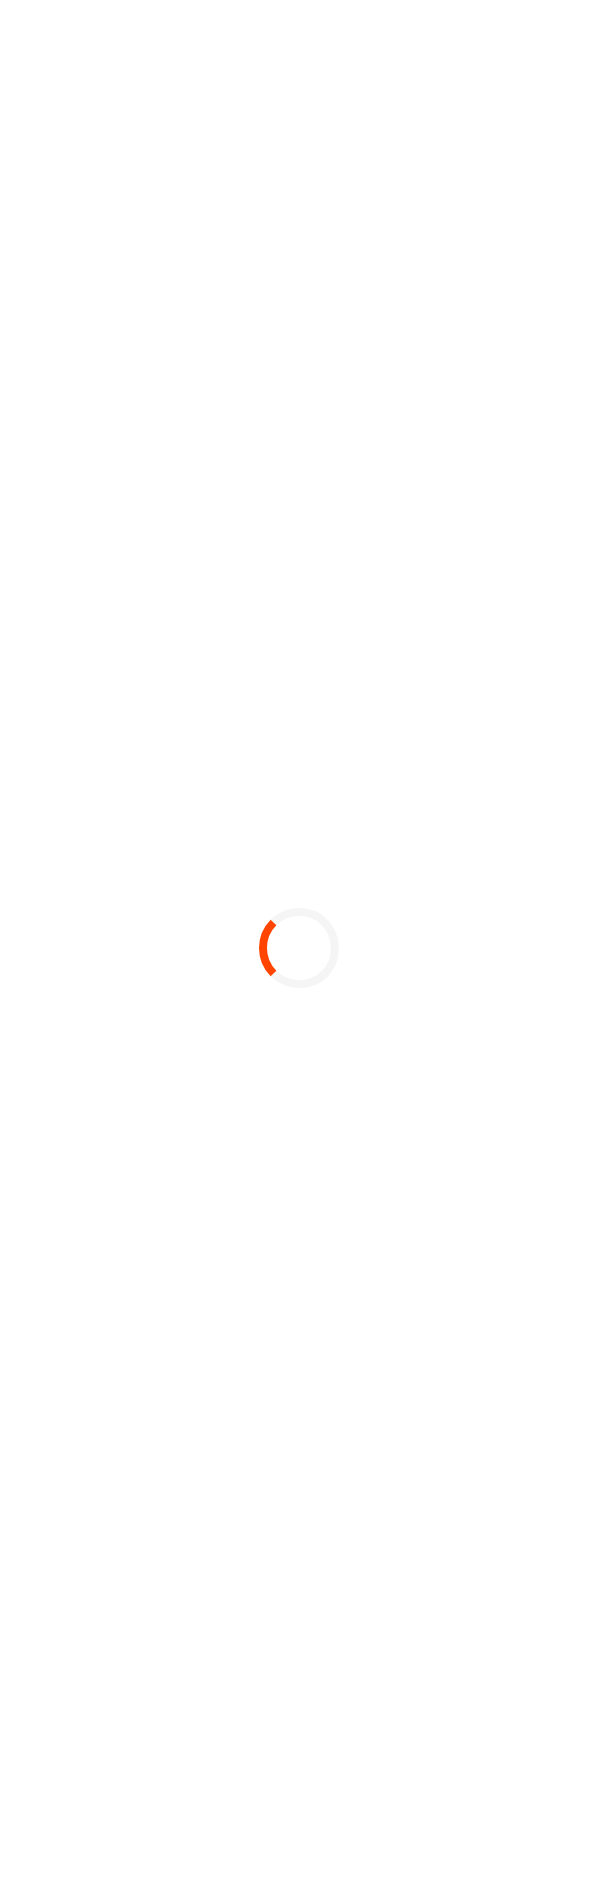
<!DOCTYPE html>
<meta charset="utf-8">
<style>body { margin: 0 } canvas { display: block }</style>
<canvas id="canvas" width="597" height="1896"></canvas>
<script>
window.onload = function () {
	const canvas = document.getElementById("canvas");
	const ctx = canvas.getContext("2d");
	ctx.miterLimit = 4;
	ctx.fontKerning = "normal";
	function fill(x, y, w, h) {
		ctx.fillRect(x, y, w, h);
	}

	ctx.fillStyle = "#FFFFFF";
	fill(0, 0, 597, 1896);
	ctx.beginPath();
	ctx.moveTo(273.5, 922.5);
	ctx.bezierCurveTo(280, 916, 289.5, 912, 299, 912);
	ctx.bezierCurveTo(342, 912, 348.5, 975, 306, 983.5);
	ctx.bezierCurveTo(294.5, 985.5, 282, 982, 273.5, 973.5);
	ctx.strokeStyle = "#F5F5F5";
	ctx.lineWidth = 8;
	ctx.stroke();
	ctx.beginPath();
	ctx.moveTo(273.5, 973.5);
	ctx.bezierCurveTo(259.5, 959.5, 259.5, 936.5, 273.5, 922.5);
	ctx.strokeStyle = "#FF4500";
	ctx.stroke();
};
</script>
